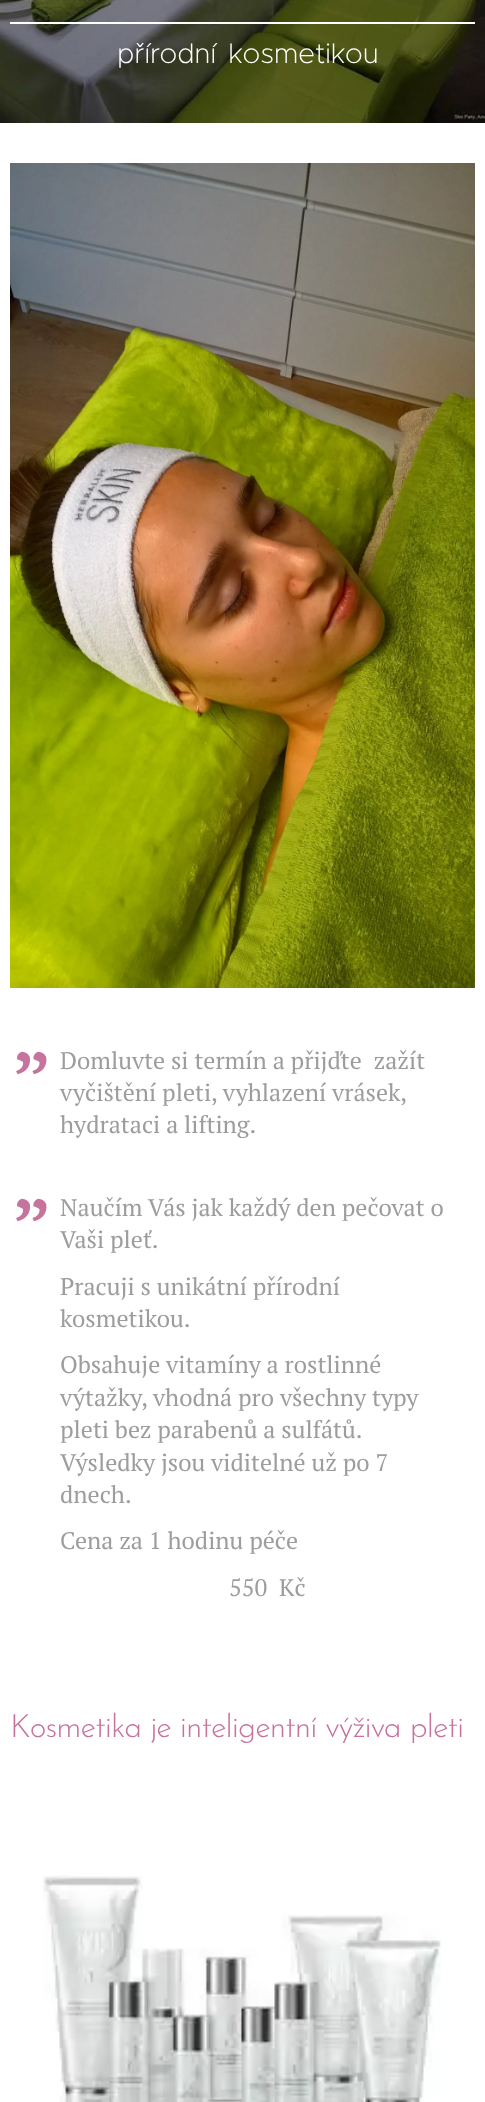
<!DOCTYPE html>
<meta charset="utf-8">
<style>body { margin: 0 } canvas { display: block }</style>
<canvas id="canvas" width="485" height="2102"></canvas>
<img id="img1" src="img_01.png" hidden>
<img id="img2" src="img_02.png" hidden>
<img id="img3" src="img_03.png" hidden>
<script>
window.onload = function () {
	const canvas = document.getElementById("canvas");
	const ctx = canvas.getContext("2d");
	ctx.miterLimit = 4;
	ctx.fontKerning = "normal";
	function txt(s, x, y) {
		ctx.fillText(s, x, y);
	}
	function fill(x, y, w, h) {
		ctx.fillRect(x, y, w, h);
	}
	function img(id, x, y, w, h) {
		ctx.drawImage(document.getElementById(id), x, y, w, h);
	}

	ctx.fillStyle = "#FFFFFF";
	fill(0, 0, 485, 2102);
	img("img1", 0, 0, 485, 123);
	fill(10, 22, 465, 2);
	img("img2", 10, 163, 465, 825);
	img("img3", 43, 1875, 398, 227);
	ctx.wordSpacing = "-2px";
	ctx.font = "200 28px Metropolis";
	txt("přírodní  kosmetikou", 117, 63);
	ctx.wordSpacing = "0px";
	ctx.font = "90px PT Serif";
	ctx.fillStyle = "#C6739E";
	ctx.save();
	ctx.translate(53, 1000);
	ctx.rotate(180 * Math.PI / 180);
	ctx.fillText("“", 0, 0);
	ctx.restore();
	ctx.font = "24px PT Serif";
	ctx.fillStyle = "#9D9D9D";
	txt("Domluvte si termín a přijďte  zažít", 60, 1069);
	txt("vyčištění pleti, vyhlazení vrásek,", 60, 1101);
	txt("hydrataci a lifting.", 60, 1133);
	ctx.font = "90px PT Serif";
	ctx.fillStyle = "#C6739E";
	ctx.save();
	ctx.translate(53, 1147);
	ctx.rotate(180 * Math.PI / 180);
	ctx.fillText("“", 0, 0);
	ctx.restore();
	ctx.font = "24px PT Serif";
	ctx.fillStyle = "#9D9D9D";
	txt("Naučím Vás jak každý den pečovat o", 60, 1216);
	txt("Vaši pleť.", 60, 1248);
	txt("Pracuji s unikátní přírodní", 60, 1295);
	txt("kosmetikou.", 60, 1327);
	txt("Obsahuje vitamíny a rostlinné", 60, 1373);
	txt("výtažky, vhodná pro všechny typy", 60, 1406);
	txt("pleti bez parabenů a sulfátů.", 60, 1438);
	txt("Výsledky jsou viditelné už po 7", 60, 1471);
	txt("dnech.", 60, 1503);
	txt("Cena za 1 hodinu péče", 60, 1549);
	txt("550  Kč", 229, 1596);
	ctx.letterSpacing = "-0.95px";
	ctx.font = "300 32px Josefin Sans";
	ctx.fillStyle = "#C6739E";
	txt("Kosmetika je inteligentní výživa pleti", 10, 1737);
};
</script>
